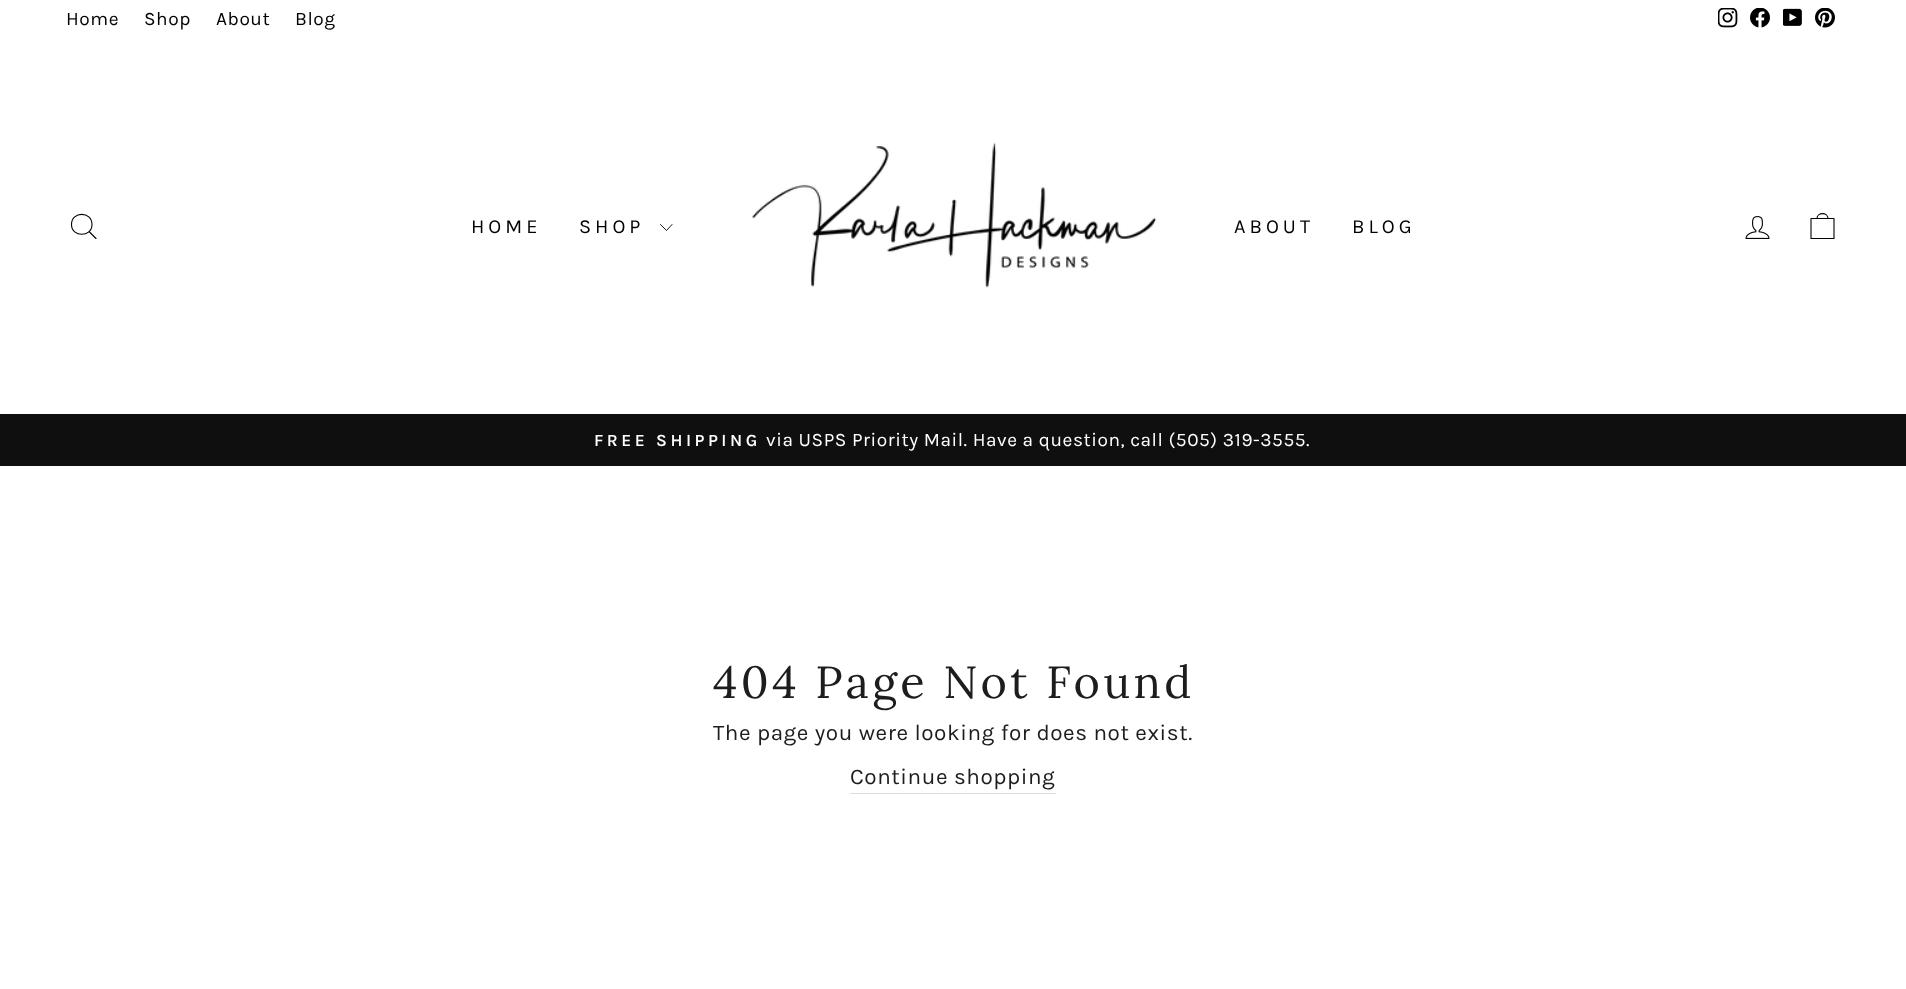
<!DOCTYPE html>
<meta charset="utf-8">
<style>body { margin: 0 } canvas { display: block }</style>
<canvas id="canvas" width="1906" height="989"></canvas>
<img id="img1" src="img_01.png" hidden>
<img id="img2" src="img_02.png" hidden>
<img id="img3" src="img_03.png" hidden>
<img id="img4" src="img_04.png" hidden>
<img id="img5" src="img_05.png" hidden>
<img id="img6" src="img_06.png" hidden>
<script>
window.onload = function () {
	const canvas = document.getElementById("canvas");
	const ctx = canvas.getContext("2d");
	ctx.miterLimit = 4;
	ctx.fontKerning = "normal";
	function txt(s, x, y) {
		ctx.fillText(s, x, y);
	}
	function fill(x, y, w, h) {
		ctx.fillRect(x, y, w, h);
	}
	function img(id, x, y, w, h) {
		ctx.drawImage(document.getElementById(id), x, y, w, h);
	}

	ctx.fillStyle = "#FFFFFF";
	fill(0, 0, 1906, 989);
	img("img1", 1718, 8, 20, 20);
	img("img2", 1750, 8, 20, 20);
	img("img3", 1783, 8, 19, 18);
	img("img4", 1815, 8, 20, 20);
	ctx.fillStyle = "#0F0F0F";
	fill(0, 414, 1906, 52);
	ctx.fillStyle = "rgba(0, 0, 0, 0.2)";
	ctx.filter = "blur(0.5px)";
	ctx.beginPath();
	ctx.rect(0, 39, 1906, 375);
	ctx.fill();
	ctx.filter = "none";
	ctx.fillStyle = "#FFFFFF";
	fill(0, 39, 1906, 375);
	ctx.beginPath();
	ctx.moveTo(92, 224.5);
	ctx.bezierCurveTo(92, 237.5, 71.5, 237.5, 71.5, 224.5);
	ctx.bezierCurveTo(71.5, 211, 92, 211, 92, 224.5);
	ctx.closePath();
	ctx.moveTo(96, 238.5);
	ctx.lineTo(89, 231.5);
	ctx.strokeStyle = "#000000";
	ctx.lineWidth = 1.1;
	ctx.lineCap = "round";
	ctx.lineJoin = "round";
	ctx.stroke();
	ctx.beginPath();
	ctx.moveTo(660.5, 224.5);
	ctx.lineTo(666.5, 230.5);
	ctx.lineTo(672, 224.5);
	ctx.lineWidth = 0.9;
	ctx.stroke();
	img("img5", 752, 142, 405, 146);
	img("img6", 1745, 216, 25, 23);
	ctx.beginPath();
	ctx.moveTo(1811, 218.5);
	ctx.lineTo(1834, 218.5);
	ctx.lineTo(1834, 238.5);
	ctx.lineTo(1811, 238.5);
	ctx.closePath();
	ctx.moveTo(1817, 218.5);
	ctx.bezierCurveTo(1817, 212, 1828, 212, 1828, 218.5);
	ctx.lineWidth = 1.1;
	ctx.stroke();
	ctx.fillStyle = "#DDDDDD";
	fill(850, 793, 206, 1);
	ctx.letterSpacing = "0.55px";
	ctx.font = "19.1px Karla";
	ctx.fillStyle = "#000000";
	txt("Home", 66, 25);
	txt("Shop", 144, 25);
	txt("About", 216, 25);
	txt("Blog", 295, 25);
	ctx.letterSpacing = "4px";
	ctx.font = "20px Karla";
	txt("HOME", 471, 233);
	txt("SHOP", 579, 233);
	txt("ABOUT", 1234, 233);
	txt("BLOG", 1352, 233);
	ctx.letterSpacing = "3.5px";
	ctx.font = "600 17.25px Karla";
	ctx.fillStyle = "#FFFFFF";
	txt("FREE SHIPPING", 594, 446);
	ctx.letterSpacing = "0.55px";
	ctx.font = "19.1px Karla";
	txt("via USPS Priority Mail. Have a question, call (505) 319-3555.", 766, 446);
	ctx.letterSpacing = "3.4px";
	ctx.font = "45px Lora";
	ctx.fillStyle = "#1C1D1D";
	txt("404 Page Not Found", 713, 698);
	ctx.letterSpacing = "0.55px";
	ctx.font = "22.5px Karla";
	txt("The page you were looking for does not exist.", 713, 740);
	txt("Continue shopping", 850, 784);
};
</script>
